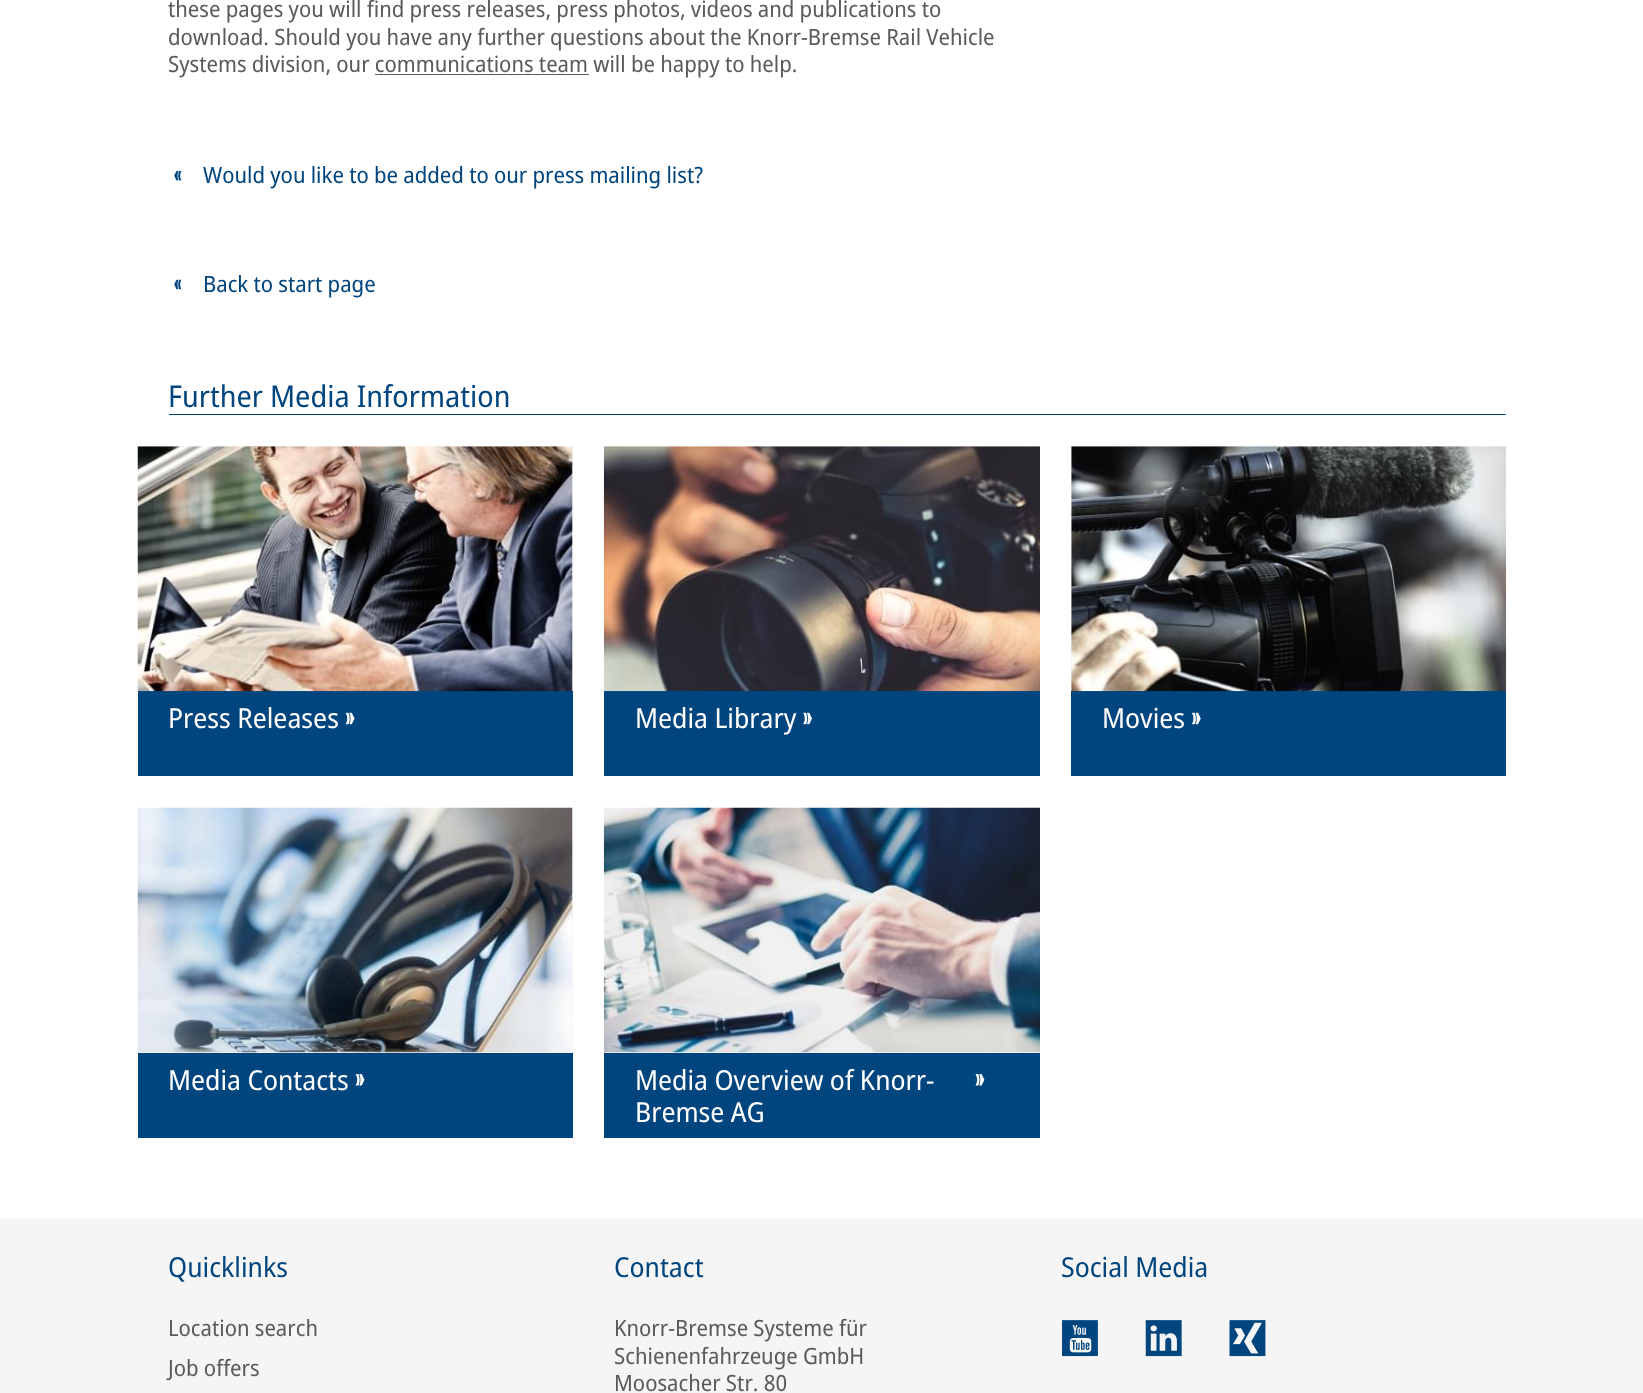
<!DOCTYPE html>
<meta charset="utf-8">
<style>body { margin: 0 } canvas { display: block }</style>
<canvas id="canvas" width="1643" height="1393"></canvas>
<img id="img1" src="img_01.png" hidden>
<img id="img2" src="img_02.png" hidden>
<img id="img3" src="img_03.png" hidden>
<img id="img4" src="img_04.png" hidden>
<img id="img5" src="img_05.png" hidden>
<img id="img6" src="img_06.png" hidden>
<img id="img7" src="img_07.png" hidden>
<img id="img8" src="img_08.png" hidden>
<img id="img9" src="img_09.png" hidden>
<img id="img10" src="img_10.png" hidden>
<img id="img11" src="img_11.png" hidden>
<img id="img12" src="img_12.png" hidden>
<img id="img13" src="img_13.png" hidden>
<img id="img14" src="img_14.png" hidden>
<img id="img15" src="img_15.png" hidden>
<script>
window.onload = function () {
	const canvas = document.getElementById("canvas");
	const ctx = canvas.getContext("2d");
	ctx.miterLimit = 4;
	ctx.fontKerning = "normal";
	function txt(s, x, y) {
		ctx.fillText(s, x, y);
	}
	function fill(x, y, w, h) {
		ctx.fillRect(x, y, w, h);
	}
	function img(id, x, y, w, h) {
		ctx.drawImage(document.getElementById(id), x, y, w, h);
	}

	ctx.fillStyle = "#FFFFFF";
	fill(0, 0, 1643, 1393);
	ctx.fillStyle = "#5B5B5B";
	fill(375, 74, 214, 1);
	img("img1", 174, 171, 8, 10);
	img("img2", 174, 279, 8, 11);
	ctx.fillStyle = "#00457E";
	fill(169, 414, 1337, 1);
	ctx.fillStyle = "#F5F5F5";
	fill(138, 446, 435, 245);
	ctx.fillStyle = "#00457E";
	fill(138, 691, 435, 85);
	img("img3", 137, 446, 436, 246);
	img("img4", 345, 712, 10, 13);
	ctx.fillStyle = "#F5F5F5";
	fill(604, 446, 436, 1);
	ctx.fillStyle = "#00457E";
	fill(604, 691, 436, 85);
	img("img5", 603, 446, 437, 246);
	img("img6", 803, 712, 9, 13);
	ctx.fillStyle = "#F5F5F5";
	fill(1071, 446, 435, 245);
	ctx.fillStyle = "#00457E";
	fill(1071, 691, 435, 85);
	img("img7", 1071, 446, 436, 246);
	img("img8", 1192, 712, 9, 13);
	ctx.fillStyle = "#F5F5F5";
	fill(138, 808, 435, 245);
	img("img9", 137, 807, 436, 246);
	ctx.fillStyle = "#00457E";
	fill(138, 1053, 435, 85);
	img("img10", 355, 1074, 10, 12);
	ctx.fillStyle = "#F5F5F5";
	fill(604, 1052, 436, 1);
	img("img11", 603, 807, 437, 246);
	ctx.fillStyle = "#00457E";
	fill(604, 1053, 436, 85);
	img("img12", 975, 1074, 10, 12);
	ctx.fillStyle = "#F5F5F5";
	fill(0, 1219, 1643, 174);
	img("img13", 1062, 1320, 36, 37);
	img("img14", 1145, 1320, 37, 37);
	img("img15", 1229, 1320, 37, 37);
	ctx.font = "22.5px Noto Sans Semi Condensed";
	ctx.fillStyle = "#5B5B5B";
	txt("these pages you will find press releases, press photos, videos and publications to", 168, 17);
	txt("download. Should you have any further questions about the Knorr-Bremse Rail Vehicle", 168, 45);
	txt("Systems division, our communications team will be happy to help.", 168, 72);
	ctx.fillStyle = "#00457E";
	txt("Would you like to be added to our press mailing list?", 203, 183);
	txt("Back to start page", 203, 292);
	ctx.font = "30px Noto Sans Semi Condensed";
	txt("Further Media Information", 168, 407);
	ctx.font = "27.5px Noto Sans Semi Condensed";
	ctx.fillStyle = "#FFFFFF";
	txt("Press Releases", 168, 728);
	txt("Media Library", 635, 728);
	txt("Movies", 1102, 728);
	txt("Media Contacts", 168, 1090);
	txt("Media Overview of Knorr-", 635, 1090);
	txt("Bremse AG", 635, 1122);
	ctx.fillStyle = "#00457E";
	txt("Quicklinks", 168, 1277);
	ctx.font = "22.5px Noto Sans Semi Condensed";
	ctx.fillStyle = "#5B5B5B";
	txt("Location search", 168, 1336);
	txt("Job offers", 168, 1376);
	ctx.font = "27.5px Noto Sans Semi Condensed";
	ctx.fillStyle = "#00457E";
	txt("Contact", 614, 1277);
	ctx.font = "22.5px Noto Sans Semi Condensed";
	ctx.fillStyle = "#5B5B5B";
	txt("Knorr-Bremse Systeme für", 614, 1336);
	txt("Schienenfahrzeuge GmbH", 614, 1364);
	txt("Moosacher Str. 80", 614, 1391);
	ctx.font = "27.5px Noto Sans Semi Condensed";
	ctx.fillStyle = "#00457E";
	txt("Social Media", 1061, 1277);
};
</script>
